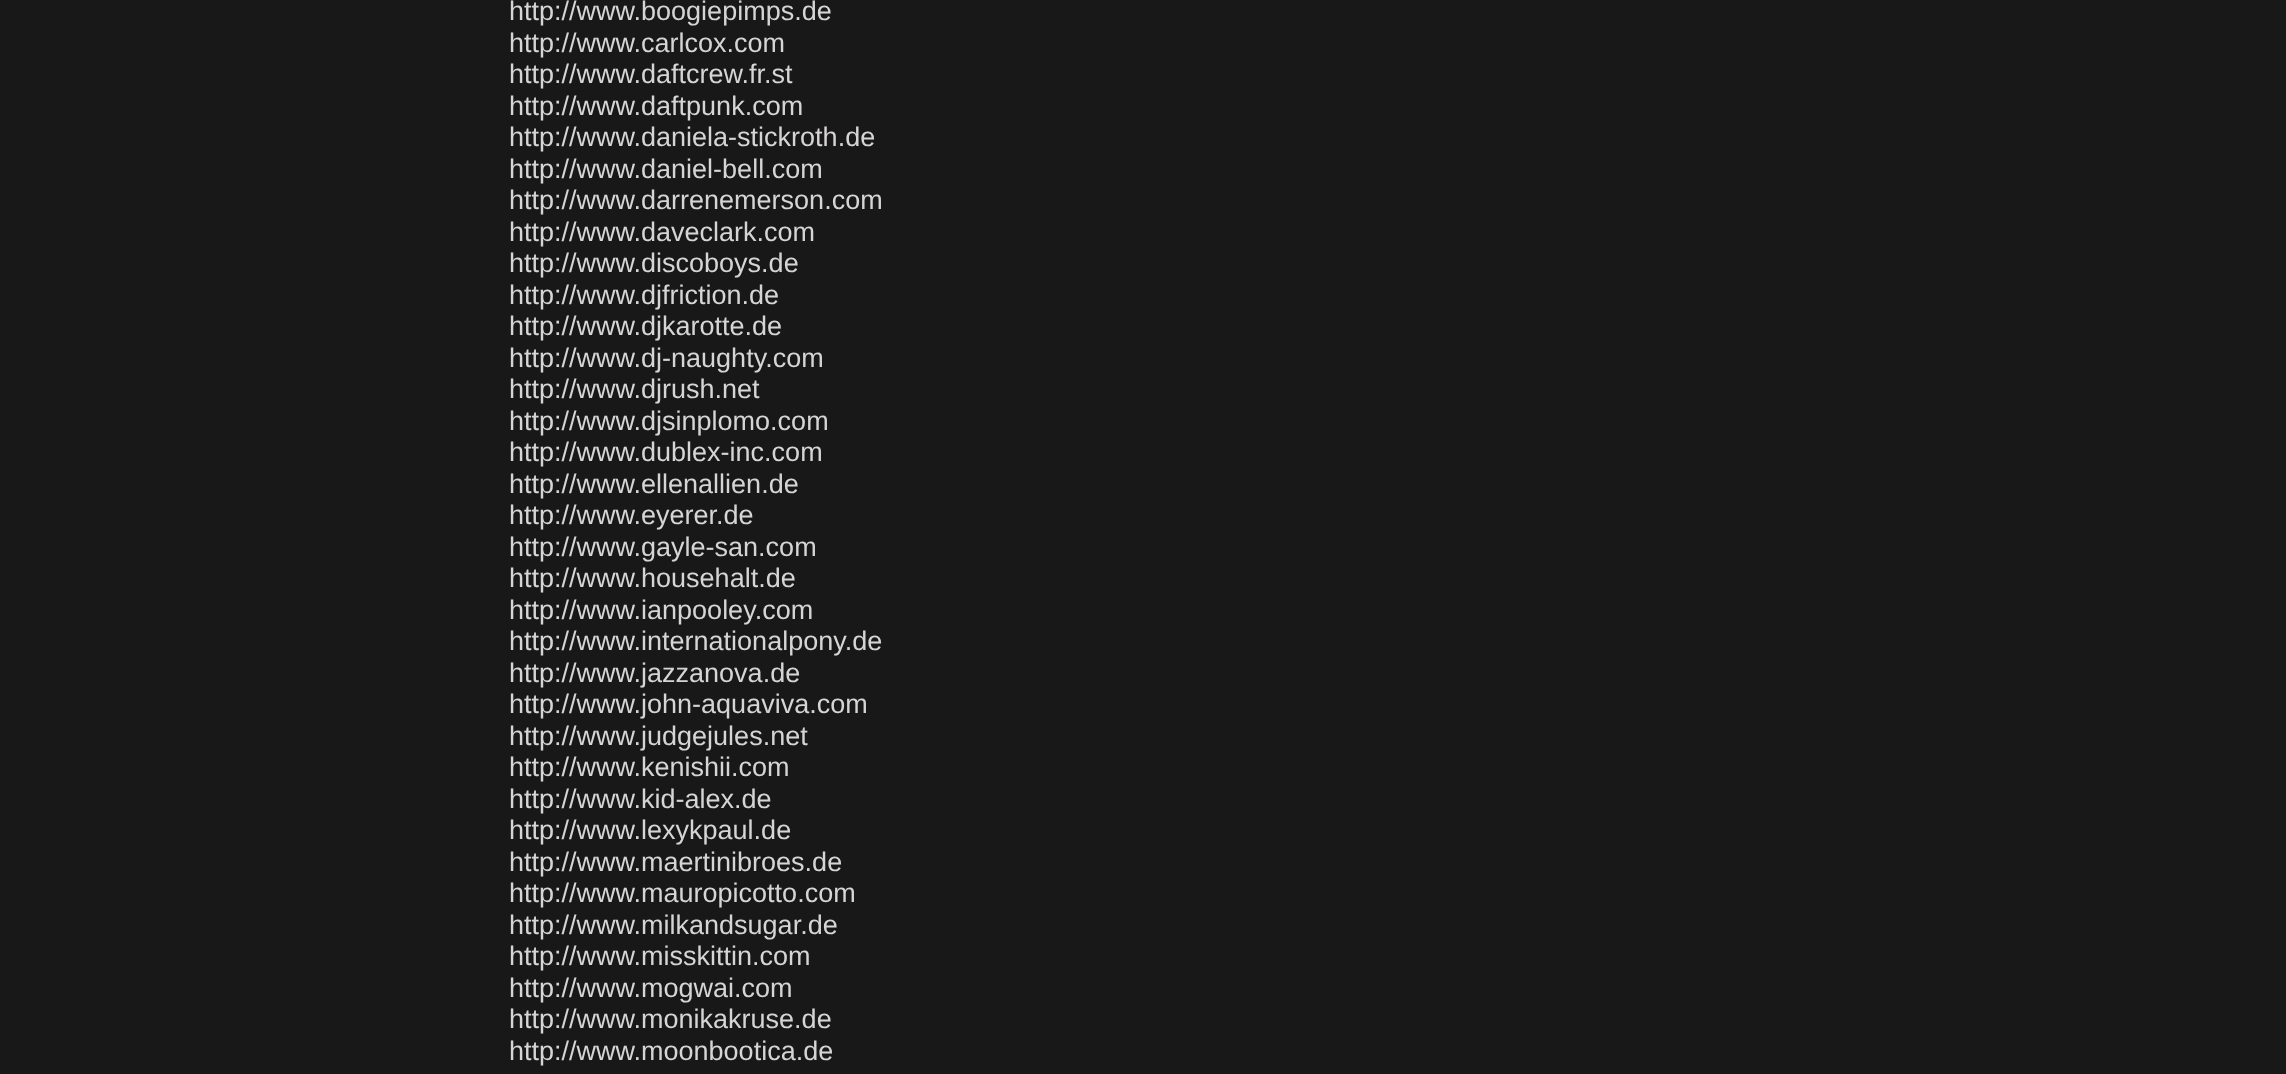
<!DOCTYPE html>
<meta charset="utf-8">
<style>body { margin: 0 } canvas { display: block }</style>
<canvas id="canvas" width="2286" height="1074"></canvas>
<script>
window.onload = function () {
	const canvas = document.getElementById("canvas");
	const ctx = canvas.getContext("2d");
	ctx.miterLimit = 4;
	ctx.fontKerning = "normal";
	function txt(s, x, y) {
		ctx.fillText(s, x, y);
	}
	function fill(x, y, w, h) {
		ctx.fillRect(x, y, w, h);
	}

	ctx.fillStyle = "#181818";
	fill(0, 0, 2286, 1074);
	ctx.font = "27px Liberation Sans";
	ctx.fillStyle = "#D6D4D4";
	txt("http://www.boogiepimps.de", 509, 20);
	txt("http://www.carlcox.com", 509, 52);
	txt("http://www.daftcrew.fr.st", 509, 83);
	txt("http://www.daftpunk.com", 509, 115);
	txt("http://www.daniela-stickroth.de", 509, 146);
	txt("http://www.daniel-bell.com", 509, 178);
	txt("http://www.darrenemerson.com", 509, 209);
	txt("http://www.daveclark.com", 509, 241);
	txt("http://www.discoboys.de", 509, 272);
	txt("http://www.djfriction.de", 509, 304);
	txt("http://www.djkarotte.de", 509, 335);
	txt("http://www.dj-naughty.com", 509, 367);
	txt("http://www.djrush.net", 509, 398);
	txt("http://www.djsinplomo.com", 509, 430);
	txt("http://www.dublex-inc.com", 509, 461);
	txt("http://www.ellenallien.de", 509, 493);
	txt("http://www.eyerer.de", 509, 524);
	txt("http://www.gayle-san.com", 509, 556);
	txt("http://www.househalt.de", 509, 587);
	txt("http://www.ianpooley.com", 509, 619);
	txt("http://www.internationalpony.de", 509, 650);
	txt("http://www.jazzanova.de", 509, 682);
	txt("http://www.john-aquaviva.com", 509, 713);
	txt("http://www.judgejules.net", 509, 745);
	txt("http://www.kenishii.com", 509, 776);
	txt("http://www.kid-alex.de", 509, 808);
	txt("http://www.lexykpaul.de", 509, 839);
	txt("http://www.maertinibroes.de", 509, 871);
	txt("http://www.mauropicotto.com", 509, 902);
	txt("http://www.milkandsugar.de", 509, 934);
	txt("http://www.misskittin.com", 509, 965);
	txt("http://www.mogwai.com", 509, 997);
	txt("http://www.monikakruse.de", 509, 1028);
	txt("http://www.moonbootica.de", 509, 1060);
};
</script>
